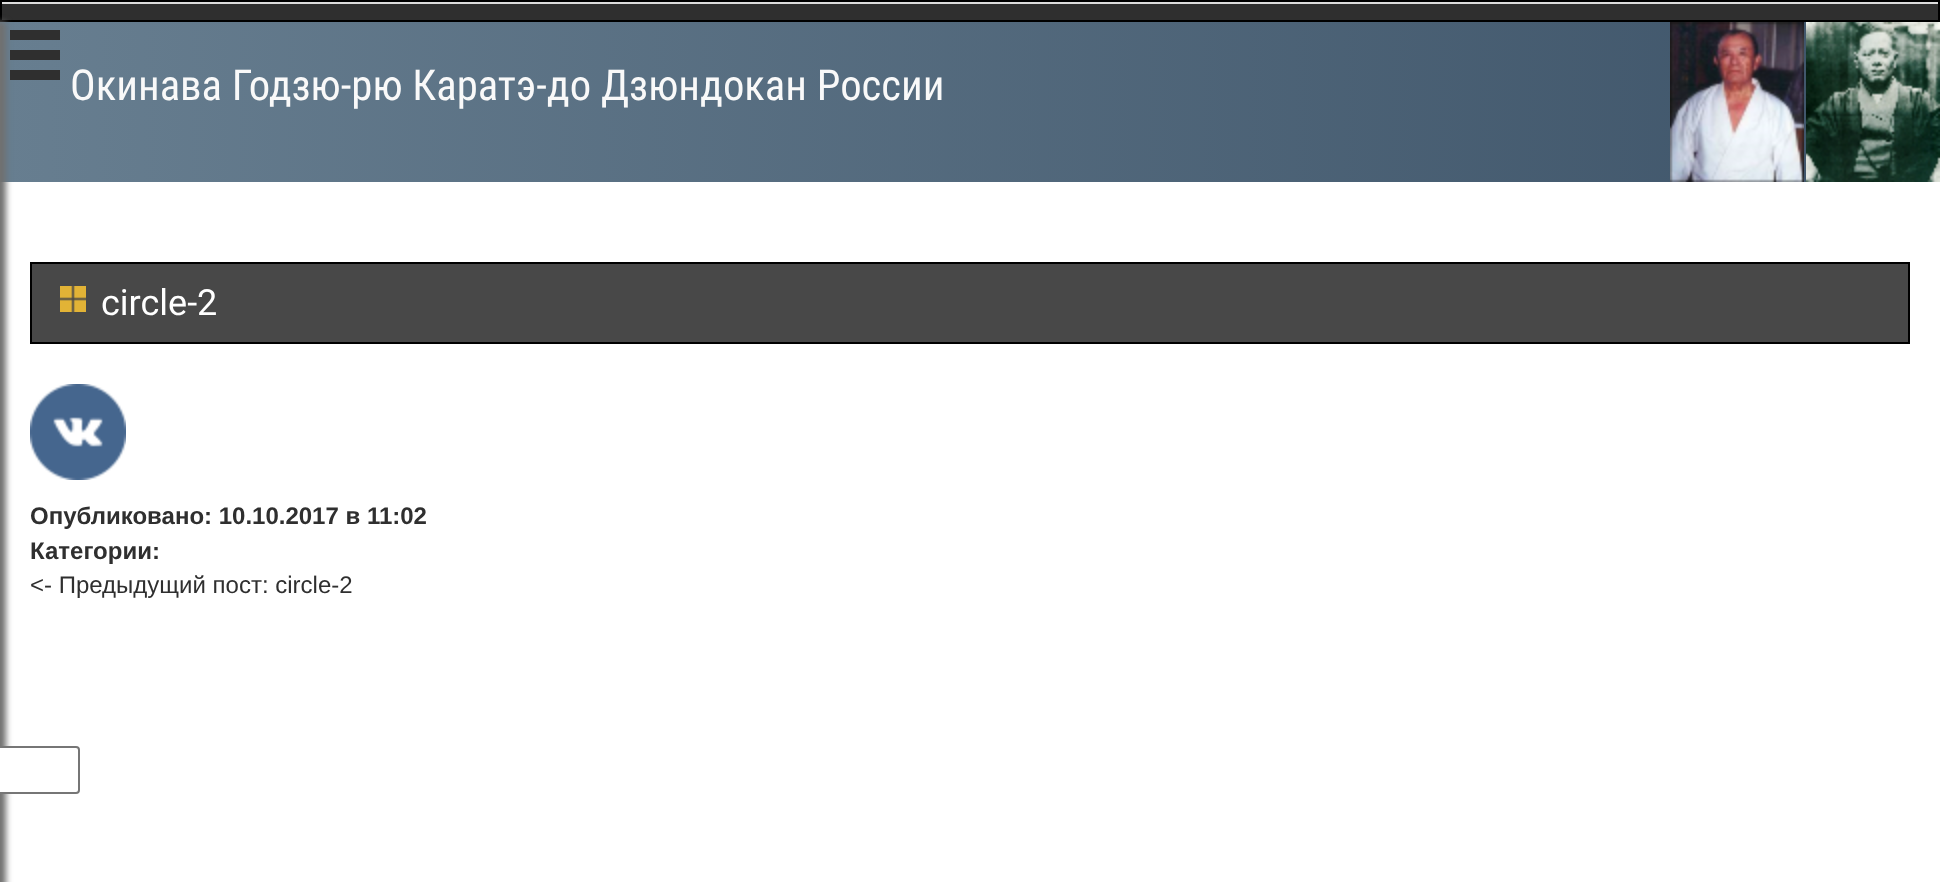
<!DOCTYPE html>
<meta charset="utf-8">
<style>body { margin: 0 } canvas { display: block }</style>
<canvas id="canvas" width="1940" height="882"></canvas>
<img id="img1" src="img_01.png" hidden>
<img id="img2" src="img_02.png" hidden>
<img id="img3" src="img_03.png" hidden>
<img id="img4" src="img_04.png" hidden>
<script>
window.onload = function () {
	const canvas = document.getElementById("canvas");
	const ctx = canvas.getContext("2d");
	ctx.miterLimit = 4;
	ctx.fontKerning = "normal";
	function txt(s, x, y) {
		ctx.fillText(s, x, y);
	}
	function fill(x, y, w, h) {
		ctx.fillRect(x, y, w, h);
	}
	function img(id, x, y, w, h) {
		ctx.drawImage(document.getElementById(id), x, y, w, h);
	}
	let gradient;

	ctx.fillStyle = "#2F2F2F";
	fill(0, 0, 1940, 882);
	ctx.strokeStyle = "#000000";
	ctx.lineWidth = 2;
	ctx.strokeRect(1, 1, 1938, 20);
	ctx.fillStyle = "#DDDDDD";
	fill(2, 2, 1936, 2);
	gradient = ctx.createLinearGradient(0, 102, 1940, 102);
	gradient.addColorStop(0, "#677E90");
	gradient.addColorStop(1, "#3E5469");
	ctx.fillStyle = gradient;
	fill(0, 22, 1806, 160);
	ctx.fillStyle = "#FFFFFF";
	fill(0, 182, 1940, 700);
	ctx.fillStyle = "#70706F";
	ctx.filter = "blur(3px)";
	ctx.beginPath();
	ctx.rect(-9, 22, 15, 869);
	ctx.fill();
	ctx.filter = "none";
	ctx.fillStyle = "#FFFFFF";
	ctx.beginPath();
	ctx.roundRect(-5, 747, 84, 46, 3);
	ctx.fill();
	ctx.strokeStyle = "#767676";
	ctx.stroke();
	ctx.fillStyle = "#2F2F2F";
	fill(10, 30, 50, 10);
	fill(10, 50, 50, 10);
	fill(10, 70, 50, 10);
	img("img1", 1670, 22, 134, 160);
	img("img2", 1806, 22, 134, 160);
	ctx.fillStyle = "#484848";
	ctx.beginPath();
	ctx.rect(31, 263, 1878, 80);
	ctx.fill();
	ctx.strokeStyle = "#000000";
	ctx.stroke();
	img("img3", 60, 286, 26, 26);
	img("img4", 30, 384, 96, 96);
	ctx.font = "42.7px Roboto Condensed";
	ctx.fillStyle = "#F9F9F9";
	txt("Окинава Годзю-рю Каратэ-до Дзюндокан России", 70, 100);
	ctx.font = "36px Roboto";
	ctx.fillStyle = "#FFFFFF";
	txt("circle-2", 101, 315);
	ctx.font = "bold 24px Liberation Sans";
	ctx.fillStyle = "#2F2F2F";
	txt("Опубликовано: 10.10.2017 в 11:02", 30, 524);
	txt("Категории:", 30, 559);
	ctx.font = "24px Liberation Sans";
	txt("<- Предыдущий пост: circle-2", 30, 593);
};
</script>
